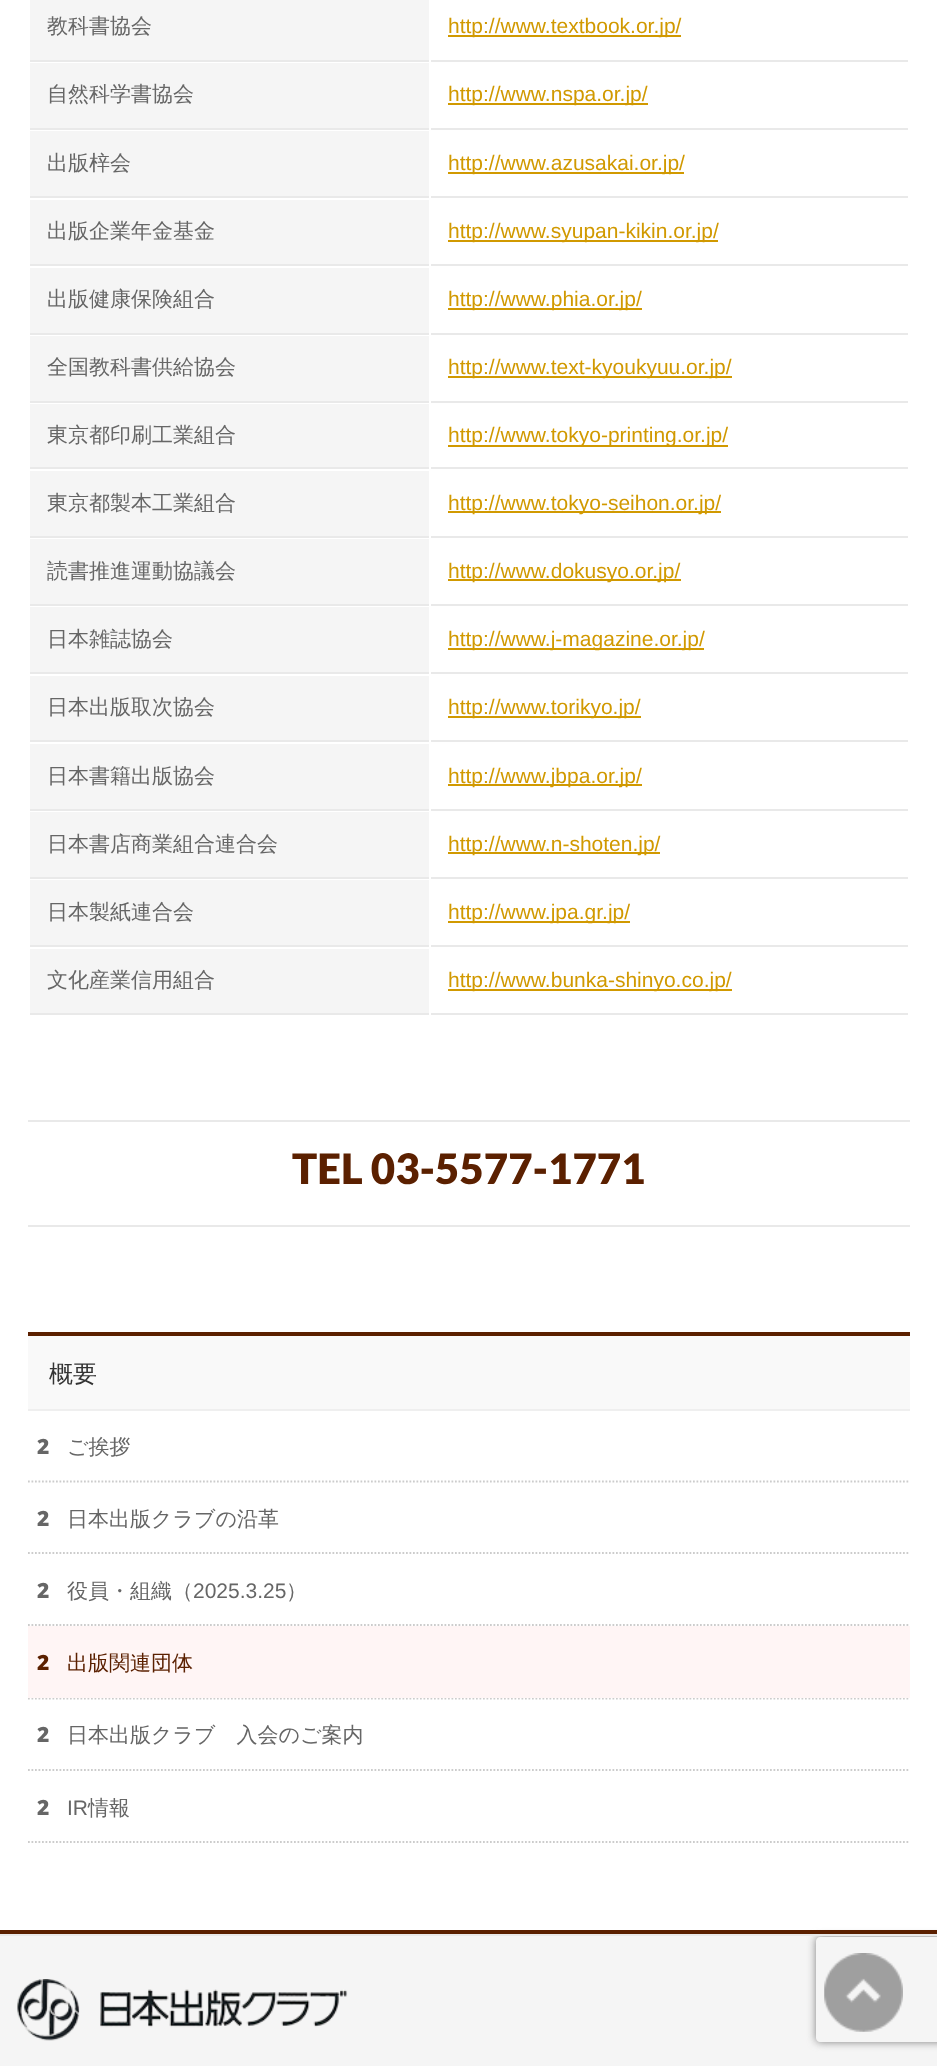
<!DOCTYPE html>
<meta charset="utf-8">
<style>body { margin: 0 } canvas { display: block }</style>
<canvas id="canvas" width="937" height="2066"></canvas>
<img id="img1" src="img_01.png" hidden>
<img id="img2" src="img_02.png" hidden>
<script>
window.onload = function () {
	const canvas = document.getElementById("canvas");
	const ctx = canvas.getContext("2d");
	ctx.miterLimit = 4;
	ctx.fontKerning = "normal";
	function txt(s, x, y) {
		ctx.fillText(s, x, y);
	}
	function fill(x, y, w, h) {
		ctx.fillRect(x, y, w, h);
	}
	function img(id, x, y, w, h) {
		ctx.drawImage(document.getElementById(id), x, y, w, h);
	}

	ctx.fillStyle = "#FFFFFF";
	fill(0, 0, 937, 2066);
	ctx.fillStyle = "#F5F5F5";
	fill(30, 0, 399, 60);
	ctx.fillStyle = "#E9E9E9";
	fill(30, 60, 399, 2);
	fill(431, 60, 477, 2);
	ctx.fillStyle = "#D19900";
	fill(448, 35, 233, 2);
	ctx.fillStyle = "#F5F5F5";
	fill(30, 63, 399, 65);
	ctx.fillStyle = "#E9E9E9";
	fill(30, 128, 399, 2);
	fill(431, 128, 477, 2);
	ctx.fillStyle = "#D19900";
	fill(448, 103, 200, 2);
	ctx.fillStyle = "#F5F5F5";
	fill(30, 131, 399, 65);
	ctx.fillStyle = "#E9E9E9";
	fill(30, 196, 399, 2);
	fill(431, 196, 477, 2);
	ctx.fillStyle = "#D19900";
	fill(448, 172, 236, 2);
	ctx.fillStyle = "#F5F5F5";
	fill(30, 200, 399, 64);
	ctx.fillStyle = "#E9E9E9";
	fill(30, 264, 399, 2);
	fill(431, 264, 477, 2);
	ctx.fillStyle = "#D19900";
	fill(448, 240, 270, 2);
	ctx.fillStyle = "#F5F5F5";
	fill(30, 268, 399, 65);
	ctx.fillStyle = "#E9E9E9";
	fill(30, 333, 399, 2);
	fill(431, 333, 477, 2);
	ctx.fillStyle = "#D19900";
	fill(448, 308, 194, 2);
	ctx.fillStyle = "#F5F5F5";
	fill(30, 336, 399, 65);
	ctx.fillStyle = "#E9E9E9";
	fill(30, 401, 399, 2);
	fill(431, 401, 477, 2);
	ctx.fillStyle = "#D19900";
	fill(448, 376, 284, 2);
	ctx.fillStyle = "#F5F5F5";
	fill(30, 404, 399, 63);
	ctx.fillStyle = "#E9E9E9";
	fill(30, 467, 399, 2);
	fill(431, 467, 477, 2);
	ctx.fillStyle = "#D19900";
	fill(448, 445, 280, 2);
	ctx.fillStyle = "#F5F5F5";
	fill(30, 471, 399, 65);
	ctx.fillStyle = "#E9E9E9";
	fill(30, 536, 399, 2);
	fill(431, 536, 477, 2);
	ctx.fillStyle = "#D19900";
	fill(448, 511, 273, 2);
	ctx.fillStyle = "#F5F5F5";
	fill(30, 539, 399, 65);
	ctx.fillStyle = "#E9E9E9";
	fill(30, 604, 399, 2);
	fill(431, 604, 477, 2);
	ctx.fillStyle = "#D19900";
	fill(448, 579, 233, 2);
	ctx.fillStyle = "#F5F5F5";
	fill(30, 607, 399, 65);
	ctx.fillStyle = "#E9E9E9";
	fill(30, 672, 399, 2);
	fill(431, 672, 477, 2);
	ctx.fillStyle = "#D19900";
	fill(448, 648, 256, 2);
	ctx.fillStyle = "#F5F5F5";
	fill(30, 676, 399, 64);
	ctx.fillStyle = "#E9E9E9";
	fill(30, 740, 399, 2);
	fill(431, 740, 477, 2);
	ctx.fillStyle = "#D19900";
	fill(448, 716, 193, 2);
	ctx.fillStyle = "#F5F5F5";
	fill(30, 744, 399, 65);
	ctx.fillStyle = "#E9E9E9";
	fill(30, 809, 399, 2);
	fill(431, 809, 477, 2);
	ctx.fillStyle = "#D19900";
	fill(448, 784, 194, 2);
	ctx.fillStyle = "#F5F5F5";
	fill(30, 812, 399, 65);
	ctx.fillStyle = "#E9E9E9";
	fill(30, 877, 399, 2);
	fill(431, 877, 477, 2);
	ctx.fillStyle = "#D19900";
	fill(448, 852, 212, 2);
	ctx.fillStyle = "#F5F5F5";
	fill(30, 880, 399, 65);
	ctx.fillStyle = "#E9E9E9";
	fill(30, 945, 399, 2);
	fill(431, 945, 477, 2);
	ctx.fillStyle = "#D19900";
	fill(448, 921, 182, 2);
	ctx.fillStyle = "#F5F5F5";
	fill(30, 949, 399, 64);
	ctx.fillStyle = "#E9E9E9";
	fill(30, 1013, 399, 2);
	fill(431, 1013, 477, 2);
	ctx.fillStyle = "#D19900";
	fill(448, 989, 284, 2);
	ctx.fillStyle = "#E9E9E9";
	fill(28, 1120, 882, 2);
	fill(28, 1225, 882, 2);
	ctx.fillStyle = "#F9F9F9";
	fill(28, 1336, 882, 73);
	ctx.fillStyle = "#5B2000";
	fill(28, 1332, 882, 4);
	ctx.fillStyle = "#EFEFEF";
	fill(28, 1409, 882, 2);
	ctx.beginPath();
	ctx.moveTo(28, 1481.5);
	ctx.lineTo(910, 1481.5);
	ctx.strokeStyle = "#CCCCCC";
	ctx.lineWidth = 1.8;
	ctx.setLineDash([1.75, 1.75]);
	ctx.stroke();
	ctx.beginPath();
	ctx.moveTo(28, 1553);
	ctx.lineTo(910, 1553);
	ctx.stroke();
	ctx.beginPath();
	ctx.moveTo(28, 1625);
	ctx.lineTo(910, 1625);
	ctx.stroke();
	ctx.beginPath();
	ctx.moveTo(28, 1698.5);
	ctx.lineTo(910, 1698.5);
	ctx.stroke();
	ctx.fillStyle = "#FFF5F5";
	fill(28, 1626, 882, 72);
	ctx.beginPath();
	ctx.moveTo(28, 1770);
	ctx.lineTo(910, 1770);
	ctx.stroke();
	ctx.beginPath();
	ctx.moveTo(28, 1842);
	ctx.lineTo(910, 1842);
	ctx.stroke();
	ctx.fillStyle = "#F5F5F5";
	fill(0, 1936, 937, 130);
	ctx.save();
	ctx.beginPath();
	ctx.moveTo(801, 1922);
	ctx.lineTo(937, 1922);
	ctx.lineTo(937, 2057);
	ctx.lineTo(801, 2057);
	ctx.closePath();
	ctx.moveTo(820, 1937);
	ctx.lineTo(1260, 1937);
	ctx.bezierCurveTo(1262, 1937, 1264, 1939, 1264, 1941);
	ctx.lineTo(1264, 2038);
	ctx.bezierCurveTo(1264, 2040, 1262, 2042, 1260, 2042);
	ctx.lineTo(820, 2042);
	ctx.bezierCurveTo(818, 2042, 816, 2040, 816, 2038);
	ctx.lineTo(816, 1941);
	ctx.bezierCurveTo(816, 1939, 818, 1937, 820, 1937);
	ctx.closePath();
	ctx.clip("evenodd");
	ctx.fillStyle = "#808080";
	ctx.filter = "blur(4.5px)";
	ctx.beginPath();
	ctx.roundRect(816, 1937, 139, 105, 4);
	ctx.fill();
	ctx.filter = "none";
	ctx.restore();
	ctx.fillStyle = "#5B2000";
	fill(0, 1930, 937, 4);
	ctx.fillStyle = "#E9E9E9";
	fill(0, 1934, 937, 2);
	img("img1", 17, 1979, 331, 62);
	img("img2", 824, 1953, 79, 79);
	ctx.font = "500 21px WenQuanYi Zen Hei";
	ctx.fillStyle = "#666666";
	txt("教科書協会", 47, 33);
	ctx.font = "21px Liberation Sans";
	ctx.fillStyle = "#D19900";
	txt("http://www.textbook.or.jp/", 448, 33);
	ctx.font = "500 21px WenQuanYi Zen Hei";
	ctx.fillStyle = "#666666";
	txt("自然科学書協会", 47, 101);
	ctx.font = "21px Liberation Sans";
	ctx.fillStyle = "#D19900";
	txt("http://www.nspa.or.jp/", 448, 101);
	ctx.font = "500 21px WenQuanYi Zen Hei";
	ctx.fillStyle = "#666666";
	txt("出版梓会", 47, 170);
	ctx.font = "21px Liberation Sans";
	ctx.fillStyle = "#D19900";
	txt("http://www.azusakai.or.jp/", 448, 170);
	ctx.font = "500 21px WenQuanYi Zen Hei";
	ctx.fillStyle = "#666666";
	txt("出版企業年金基金", 47, 238);
	ctx.font = "21px Liberation Sans";
	ctx.fillStyle = "#D19900";
	txt("http://www.syupan-kikin.or.jp/", 448, 238);
	ctx.font = "500 21px WenQuanYi Zen Hei";
	ctx.fillStyle = "#666666";
	txt("出版健康保険組合", 47, 306);
	ctx.font = "21px Liberation Sans";
	ctx.fillStyle = "#D19900";
	txt("http://www.phia.or.jp/", 448, 306);
	ctx.font = "500 21px WenQuanYi Zen Hei";
	ctx.fillStyle = "#666666";
	txt("全国教科書供給協会", 47, 374);
	ctx.font = "21px Liberation Sans";
	ctx.fillStyle = "#D19900";
	txt("http://www.text-kyoukyuu.or.jp/", 448, 374);
	ctx.font = "500 21px WenQuanYi Zen Hei";
	ctx.fillStyle = "#666666";
	txt("東京都印刷工業組合", 47, 442);
	ctx.font = "21px Liberation Sans";
	ctx.fillStyle = "#D19900";
	txt("http://www.tokyo-printing.or.jp/", 448, 442);
	ctx.font = "500 21px WenQuanYi Zen Hei";
	ctx.fillStyle = "#666666";
	txt("東京都製本工業組合", 47, 510);
	ctx.font = "21px Liberation Sans";
	ctx.fillStyle = "#D19900";
	txt("http://www.tokyo-seihon.or.jp/", 448, 510);
	ctx.font = "500 21px WenQuanYi Zen Hei";
	ctx.fillStyle = "#666666";
	txt("読書推進運動協議会", 47, 578);
	ctx.font = "21px Liberation Sans";
	ctx.fillStyle = "#D19900";
	txt("http://www.dokusyo.or.jp/", 448, 578);
	ctx.font = "500 21px WenQuanYi Zen Hei";
	ctx.fillStyle = "#666666";
	txt("日本雑誌協会", 47, 646);
	ctx.font = "21px Liberation Sans";
	ctx.fillStyle = "#D19900";
	txt("http://www.j-magazine.or.jp/", 448, 646);
	ctx.font = "500 21px WenQuanYi Zen Hei";
	ctx.fillStyle = "#666666";
	txt("日本出版取次協会", 47, 714);
	ctx.font = "21px Liberation Sans";
	ctx.fillStyle = "#D19900";
	txt("http://www.torikyo.jp/", 448, 714);
	ctx.font = "500 21px WenQuanYi Zen Hei";
	ctx.fillStyle = "#666666";
	txt("日本書籍出版協会", 47, 783);
	ctx.font = "21px Liberation Sans";
	ctx.fillStyle = "#D19900";
	txt("http://www.jbpa.or.jp/", 448, 783);
	ctx.font = "500 21px WenQuanYi Zen Hei";
	ctx.fillStyle = "#666666";
	txt("日本書店商業組合連合会", 47, 851);
	ctx.font = "21px Liberation Sans";
	ctx.fillStyle = "#D19900";
	txt("http://www.n-shoten.jp/", 448, 851);
	ctx.font = "500 21px WenQuanYi Zen Hei";
	ctx.fillStyle = "#666666";
	txt("日本製紙連合会", 47, 919);
	ctx.font = "21px Liberation Sans";
	ctx.fillStyle = "#D19900";
	txt("http://www.jpa.gr.jp/", 448, 919);
	ctx.font = "500 21px WenQuanYi Zen Hei";
	ctx.fillStyle = "#666666";
	txt("文化産業信用組合", 47, 987);
	ctx.font = "21px Liberation Sans";
	ctx.fillStyle = "#D19900";
	txt("http://www.bunka-shinyo.co.jp/", 448, 987);
	ctx.font = "900 42px Lato";
	ctx.fillStyle = "#5B2000";
	txt("TEL 03-5577-1771", 292, 1184);
	ctx.font = "500 24px WenQuanYi Zen Hei";
	ctx.fillStyle = "#333333";
	txt("概要", 49, 1382);
	ctx.font = "900 21px Noto Sans";
	ctx.fillStyle = "#666666";
	txt("2", 37, 1454);
	ctx.font = "500 21px WenQuanYi Zen Hei";
	txt("ご挨拶", 67, 1454);
	ctx.font = "900 21px Noto Sans";
	txt("2", 37, 1526);
	ctx.font = "500 21px WenQuanYi Zen Hei";
	txt("日本出版クラブの沿革", 67, 1526);
	ctx.font = "900 21px Noto Sans";
	txt("2", 37, 1598);
	ctx.font = "500 21px WenQuanYi Zen Hei";
	txt("役員・組織（", 67, 1598);
	ctx.font = "21px Liberation Sans";
	txt("2025.3.25", 193, 1598);
	ctx.font = "500 21px WenQuanYi Zen Hei";
	txt("）", 286, 1598);
	ctx.font = "900 21px Noto Sans";
	ctx.fillStyle = "#5B2000";
	txt("2", 37, 1670);
	ctx.font = "500 21px WenQuanYi Zen Hei";
	txt("出版関連団体", 67, 1670);
	ctx.font = "900 21px Noto Sans";
	ctx.fillStyle = "#666666";
	txt("2", 37, 1742);
	ctx.font = "500 21px WenQuanYi Zen Hei";
	txt("日本出版クラブ　入会のご案内", 67, 1742);
	ctx.font = "900 21px Noto Sans";
	txt("2", 37, 1815);
	ctx.font = "21px Liberation Sans";
	txt("IR", 67, 1815);
	ctx.font = "500 21px WenQuanYi Zen Hei";
	txt("情報", 88, 1815);
};
</script>
